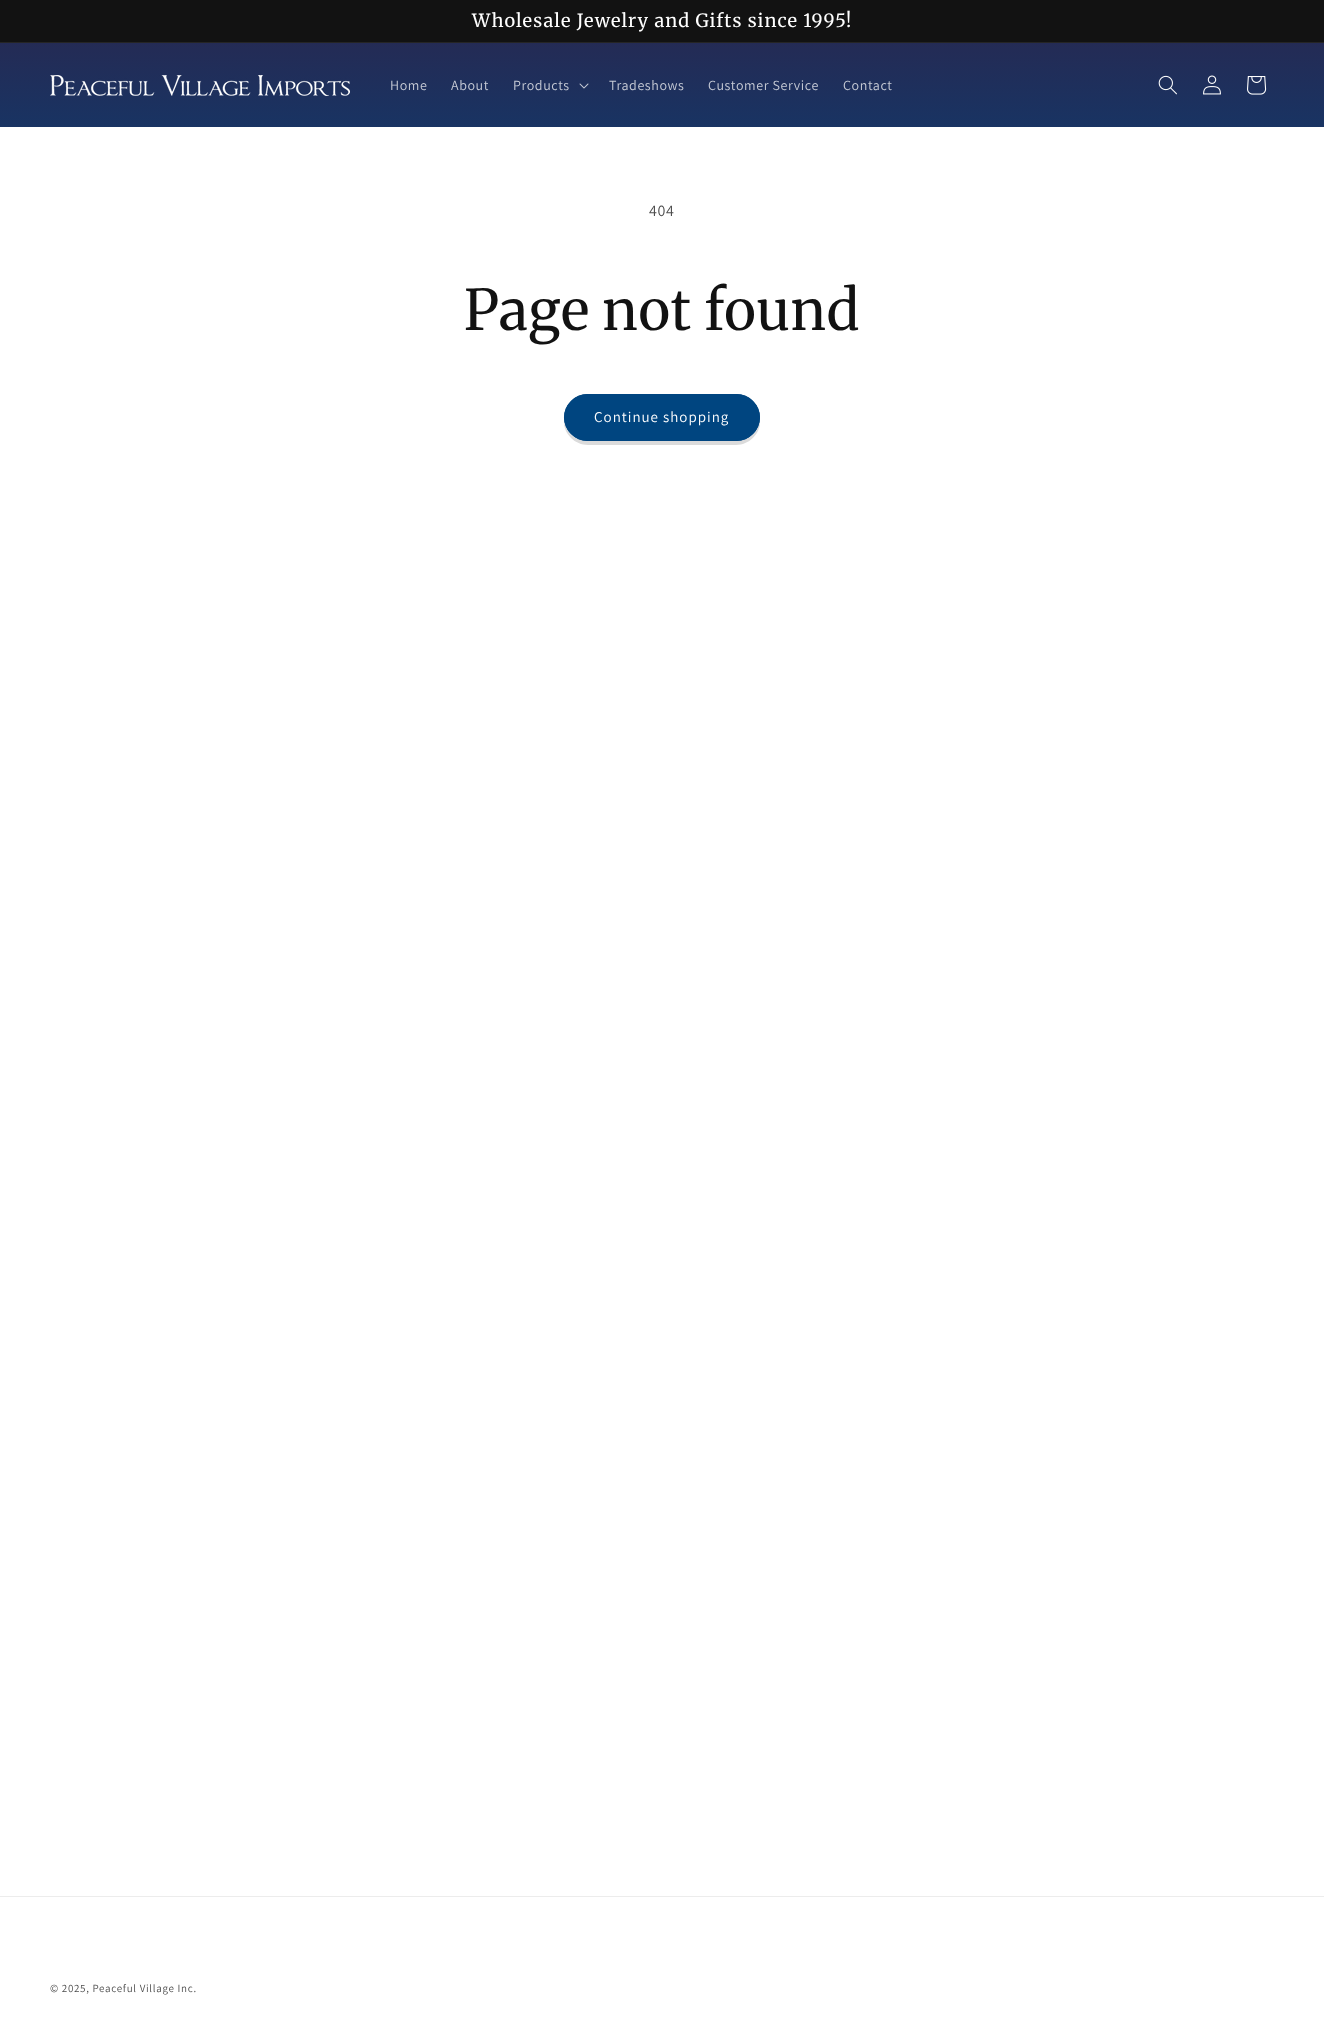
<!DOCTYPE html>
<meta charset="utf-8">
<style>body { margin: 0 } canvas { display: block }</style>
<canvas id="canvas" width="1324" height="2034"></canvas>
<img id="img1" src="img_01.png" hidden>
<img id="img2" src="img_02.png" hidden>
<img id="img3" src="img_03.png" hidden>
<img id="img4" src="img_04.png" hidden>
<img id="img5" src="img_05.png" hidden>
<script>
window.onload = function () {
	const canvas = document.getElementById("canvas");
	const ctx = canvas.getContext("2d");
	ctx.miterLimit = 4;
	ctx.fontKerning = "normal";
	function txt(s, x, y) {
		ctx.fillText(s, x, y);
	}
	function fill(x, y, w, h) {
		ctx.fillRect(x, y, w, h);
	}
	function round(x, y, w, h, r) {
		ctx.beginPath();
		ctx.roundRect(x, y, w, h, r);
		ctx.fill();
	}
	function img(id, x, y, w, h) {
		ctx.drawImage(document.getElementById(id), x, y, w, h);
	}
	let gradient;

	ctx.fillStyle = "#FFFFFF";
	fill(0, 0, 1324, 2034);
	ctx.fillStyle = "#121212";
	fill(0, 0, 1324, 42);
	ctx.fillStyle = "#252525";
	fill(0, 42, 1324, 1);
	gradient = ctx.createLinearGradient(662, 2034, 662, 0);
	gradient.addColorStop(0.85, "#004580");
	gradient.addColorStop(1, "#2A274E");
	ctx.fillStyle = gradient;
	fill(0, 43, 1324, 84);
	img("img1", 50, 75, 300, 21);
	img("img2", 579, 83, 10, 6);
	img("img3", 1158, 75, 19, 20);
	img("img4", 1203, 75, 18, 20);
	img("img5", 1247, 76, 20, 19);
	ctx.fillStyle = "#DBDBDB";
	ctx.beginPath();
	ctx.moveTo(564, 420);
	ctx.lineTo(564, 422);
	ctx.bezierCurveTo(564, 434, 575, 445, 588, 445);
	ctx.lineTo(736, 445);
	ctx.bezierCurveTo(749, 445, 760, 434, 760, 422);
	ctx.lineTo(760, 420);
	ctx.bezierCurveTo(759, 432, 749, 441, 736, 441);
	ctx.lineTo(588, 441);
	ctx.bezierCurveTo(575, 441, 565, 432, 564, 420);
	ctx.closePath();
	ctx.fill();
	ctx.fillStyle = "#004580";
	round(564, 394, 196, 47, 23.5);
	ctx.beginPath();
	ctx.roundRect(564.5, 394.5, 195, 46, 23);
	ctx.strokeStyle = "#004580";
	ctx.stroke();
	ctx.fillStyle = "#ECECEC";
	fill(0, 1896, 1324, 1);
	ctx.letterSpacing = "1px";
	ctx.font = "18.2px 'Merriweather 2'";
	ctx.fillStyle = "#FFFFFF";
	txt("Wholesale Jewelry and Gifts since 1995!", 472, 27);
	ctx.letterSpacing = "0.6px";
	ctx.font = "14px Assistant";
	ctx.fillStyle = "#C7CBD6";
	txt("Home", 390, 90);
	txt("About", 451, 90);
	txt("Products", 513, 90);
	txt("Tradeshows", 609, 90);
	txt("Customer Service", 708, 90);
	txt("Contact", 843, 90);
	ctx.font = "16px Assistant";
	ctx.fillStyle = "#4D4D4D";
	txt("404", 649, 216);
	ctx.letterSpacing = "0.8px";
	ctx.font = "56px Merriweather";
	ctx.fillStyle = "#121212";
	txt("Page not found", 464, 330);
	ctx.letterSpacing = "1px";
	ctx.font = "15px Assistant";
	ctx.fillStyle = "#FFFFFF";
	txt("Continue shopping", 594, 422);
	ctx.letterSpacing = "0.7px";
	ctx.font = "11px Assistant";
	ctx.fillStyle = "#4D4D4D";
	txt("© 2025, Peaceful Village Inc.", 50, 1992);
};
</script>
